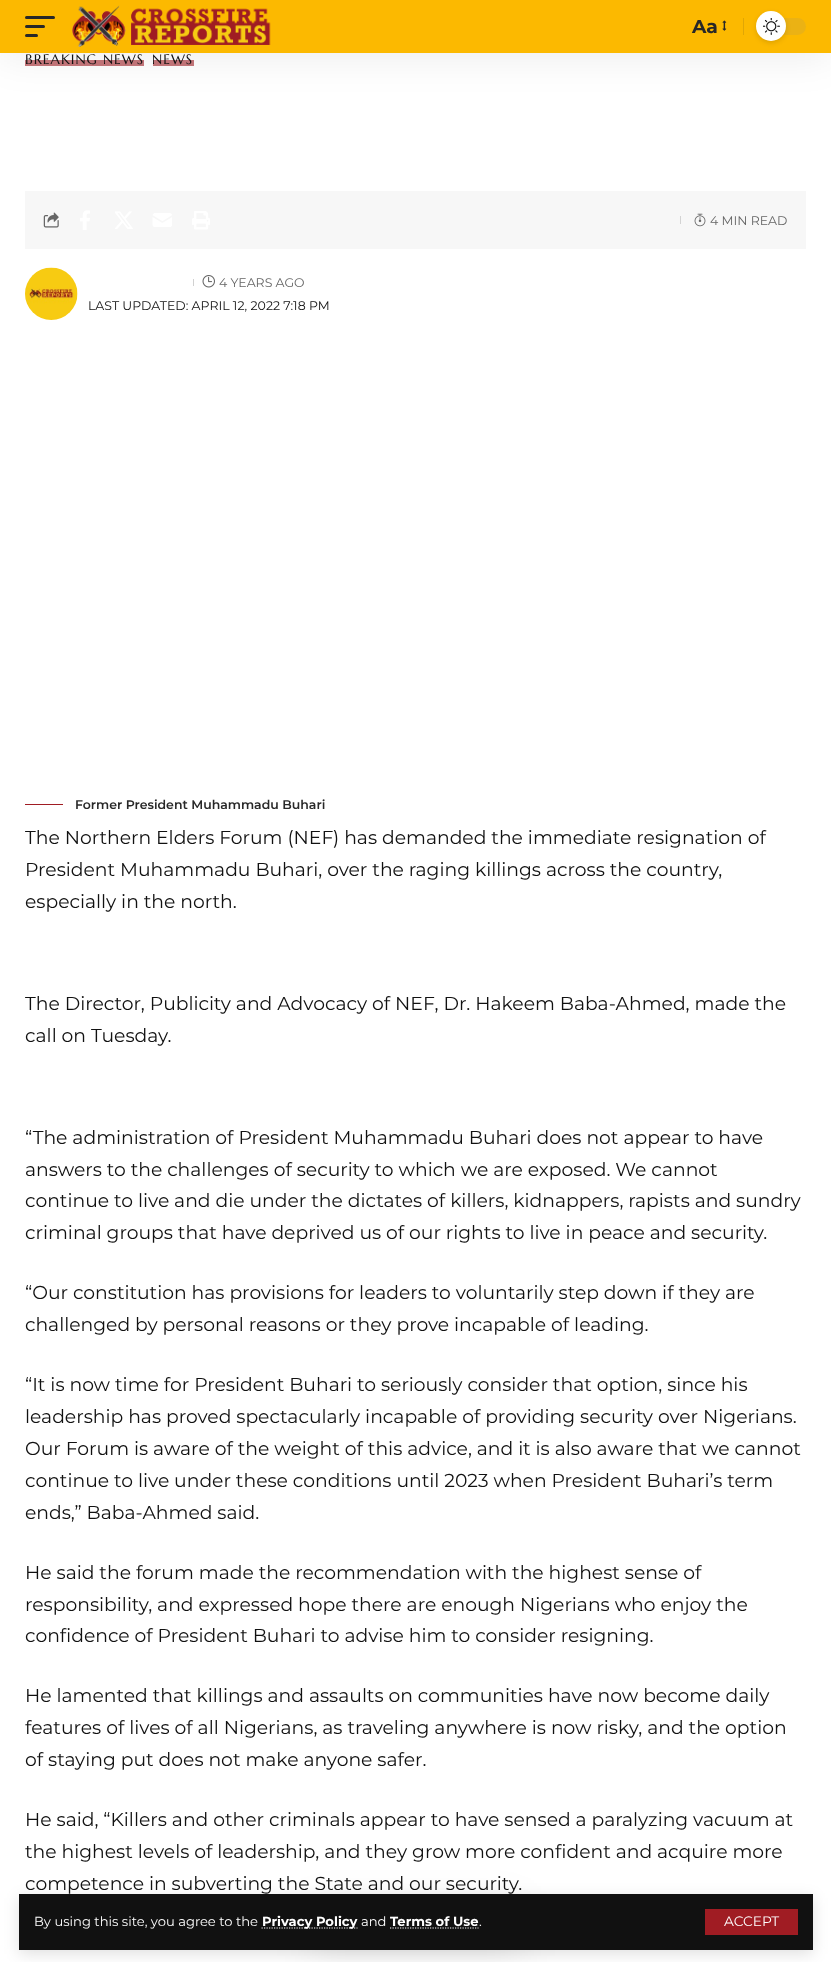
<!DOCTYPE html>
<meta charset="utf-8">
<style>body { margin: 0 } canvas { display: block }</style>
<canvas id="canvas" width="831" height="1962"></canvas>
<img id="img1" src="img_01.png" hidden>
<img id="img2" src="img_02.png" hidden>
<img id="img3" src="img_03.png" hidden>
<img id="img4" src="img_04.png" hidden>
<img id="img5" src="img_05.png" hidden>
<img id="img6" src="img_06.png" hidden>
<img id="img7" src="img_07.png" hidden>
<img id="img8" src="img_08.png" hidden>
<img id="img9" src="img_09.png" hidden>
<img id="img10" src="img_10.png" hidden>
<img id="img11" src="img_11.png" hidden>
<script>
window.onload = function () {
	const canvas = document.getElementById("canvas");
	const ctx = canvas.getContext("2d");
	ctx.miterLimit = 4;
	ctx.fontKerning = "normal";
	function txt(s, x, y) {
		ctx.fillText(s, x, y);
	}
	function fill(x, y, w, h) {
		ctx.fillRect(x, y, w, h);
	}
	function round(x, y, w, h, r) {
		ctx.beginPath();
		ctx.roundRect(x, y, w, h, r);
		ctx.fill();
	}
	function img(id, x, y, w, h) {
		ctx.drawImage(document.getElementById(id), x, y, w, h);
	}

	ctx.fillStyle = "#FFFFFF";
	fill(0, 0, 831, 1962);
	ctx.fillStyle = "#C6777B";
	fill(25, 60, 119, 6);
	fill(153, 60, 41, 6);
	ctx.fillStyle = "rgba(0, 0, 0, 0.07)";
	ctx.filter = "blur(19px)";
	ctx.beginPath();
	ctx.rect(0, 5, 831, 53);
	ctx.fill();
	ctx.filter = "none";
	ctx.fillStyle = "#FCB900";
	fill(0, 0, 831, 53);
	ctx.fillStyle = "#282828";
	round(25, 16, 30, 3, 1.5);
	round(25, 25, 20, 3, 1.5);
	round(25, 34, 13, 3, 1.5);
	img("img1", 72, 5, 199, 42);
	img("img2", 722, 20, 5, 11);
	ctx.fillStyle = "#E0A605";
	fill(743, 18, 1, 17);
	ctx.fillStyle = "#EBB214";
	round(756, 18, 50, 17, 8.5);
	ctx.fillStyle = "rgba(0, 0, 0, 0.12)";
	ctx.filter = "blur(2.5px)";
	ctx.beginPath();
	ctx.roundRect(756, 13, 30, 30, 15);
	ctx.fill();
	ctx.filter = "none";
	ctx.fillStyle = "#FFFFFF";
	ctx.beginPath();
	ctx.arc(771, 26, 15, 0, Math.PI * 2);
	ctx.fill();
	img("img3", 763, 18, 17, 17);
	ctx.fillStyle = "rgba(0, 0, 0, 0.12)";
	ctx.filter = "blur(7.5px)";
	ctx.beginPath();
	ctx.rect(19, 1898, 794, 56);
	ctx.fill();
	ctx.filter = "none";
	ctx.fillStyle = "rgba(0, 0, 0, 0.07)";
	ctx.filter = "blur(19px)";
	ctx.beginPath();
	ctx.rect(311, 1904, 210, 52);
	ctx.fill();
	ctx.filter = "none";
	ctx.fillStyle = "#111111";
	fill(19, 1894, 794, 56);
	ctx.beginPath();
	ctx.moveTo(261.5, 1928);
	ctx.lineTo(357.5, 1928);
	ctx.strokeStyle = "#FFFFFF";
	ctx.lineWidth = 1.2;
	ctx.setLineDash([1.25, 1.25]);
	ctx.stroke();
	ctx.beginPath();
	ctx.moveTo(390, 1928);
	ctx.lineTo(478.5, 1928);
	ctx.stroke();
	ctx.fillStyle = "#A01C23";
	fill(705, 1909, 93, 26);
	ctx.fillStyle = "#F7F7F7";
	fill(25, 191, 781, 58);
	img("img4", 43, 212, 16, 16);
	img("img5", 80, 210, 10, 20);
	img("img6", 115, 211, 18, 18);
	img("img7", 152, 213, 20, 14);
	img("img8", 192, 211, 18, 19);
	ctx.fillStyle = "#D3D3D3";
	fill(680, 216, 1, 8);
	img("img9", 694, 213, 12, 14);
	img("img10", 25, 267, 53, 53);
	ctx.fillStyle = "#D1D1D1";
	fill(193, 279, 1, 7);
	img("img11", 202, 275, 13, 13);
	ctx.fillStyle = "#A01C23";
	fill(25, 804, 38, 1);
	ctx.font = "bold 18.75px Montserrat";
	ctx.fillStyle = "#282828";
	txt("Aa", 692, 33);
	ctx.font = "13.1px Montserrat";
	ctx.fillStyle = "#FFFFFF";
	txt("By using this site, you agree to the", 34, 1926);
	ctx.font = "bold 13.1px Montserrat";
	txt("Privacy Policy", 262, 1926);
	ctx.font = "13.1px Montserrat";
	txt("and", 361, 1926);
	ctx.font = "bold 13.1px Montserrat";
	txt("Terms of Use", 390, 1926);
	ctx.font = "13.1px Montserrat";
	txt(".", 479, 1926);
	ctx.font = "13.75px Montserrat";
	txt("ACCEPT", 724, 1926);
	ctx.letterSpacing = "1px";
	ctx.font = "13.75px Marcellus";
	ctx.fillStyle = "#111111";
	txt("BREAKING NEWS", 25, 64);
	txt("NEWS", 152, 64);
	ctx.letterSpacing = "0px";
	ctx.font = "12.5px Montserrat";
	ctx.fillStyle = "#666666";
	txt("4 MIN READ", 710, 225);
	txt("4 YEARS AGO", 219, 287);
	ctx.fillStyle = "#111111";
	txt("LAST UPDATED: APRIL 12, 2022 7:18 PM", 88, 310);
	ctx.font = "600 12.5px Montserrat";
	ctx.fillStyle = "#282828";
	txt("Former President Muhammadu Buhari", 75, 809);
	ctx.font = "18.75px Montserrat";
	ctx.fillStyle = "#111111";
	txt("The Northern Elders Forum (NEF) has demanded the immediate resignation of", 25, 844);
	txt("President Muhammadu Buhari, over the raging killings across the country,", 25, 876);
	txt("especially in the north.", 25, 908);
	txt("The Director, Publicity and Advocacy of NEF, Dr. Hakeem Baba-Ahmed, made the", 25, 1010);
	txt("call on Tuesday.", 25, 1042);
	txt("“The administration of President Muhammadu Buhari does not appear to have", 25, 1144);
	txt("answers to the challenges of security to which we are exposed. We cannot", 25, 1176);
	txt("continue to live and die under the dictates of killers, kidnappers, rapists and sundry", 25, 1207);
	txt("criminal groups that have deprived us of our rights to live in peace and security.", 25, 1239);
	txt("“Our constitution has provisions for leaders to voluntarily step down if they are", 25, 1299);
	txt("challenged by personal reasons or they prove incapable of leading.", 25, 1331);
	txt("“It is now time for President Buhari to seriously consider that option, since his", 25, 1391);
	txt("leadership has proved spectacularly incapable of providing security over Nigerians.", 25, 1423);
	txt("Our Forum is aware of the weight of this advice, and it is also aware that we cannot", 25, 1455);
	txt("continue to live under these conditions until 2023 when President Buhari’s term", 25, 1487);
	txt("ends,” Baba-Ahmed said.", 25, 1519);
	txt("He said the forum made the recommendation with the highest sense of", 25, 1579);
	txt("responsibility, and expressed hope there are enough Nigerians who enjoy the", 25, 1611);
	txt("confidence of President Buhari to advise him to consider resigning.", 25, 1642);
	txt("He lamented that killings and assaults on communities have now become daily", 25, 1702);
	txt("features of lives of all Nigerians, as traveling anywhere is now risky, and the option", 25, 1734);
	txt("of staying put does not make anyone safer.", 25, 1766);
	txt("He said, “Killers and other criminals appear to have sensed a paralyzing vacuum at", 25, 1826);
	txt("the highest levels of leadership, and they grow more confident and acquire more", 25, 1858);
	txt("competence in subverting the State and our security.", 25, 1890);
};
</script>
